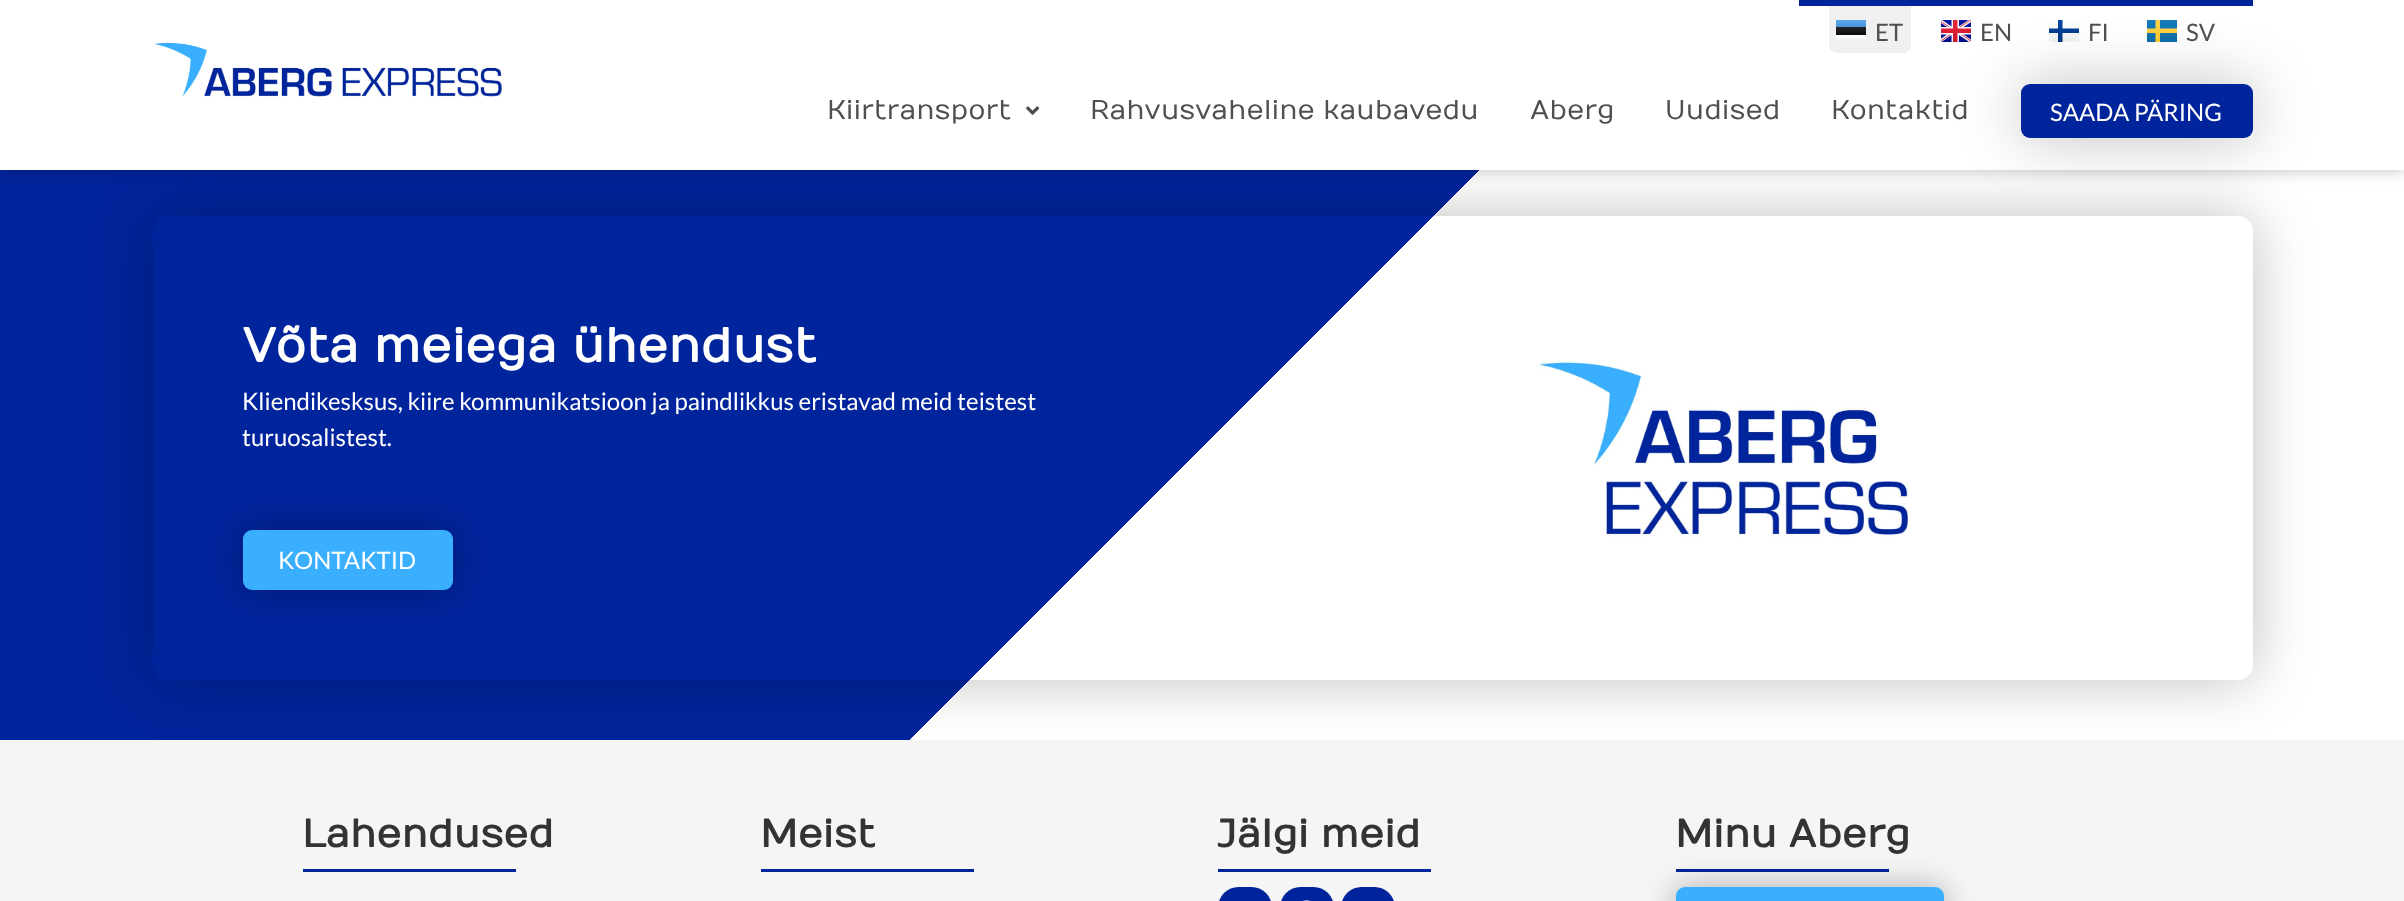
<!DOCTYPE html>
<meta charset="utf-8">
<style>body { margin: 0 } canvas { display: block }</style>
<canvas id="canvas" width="2404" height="901"></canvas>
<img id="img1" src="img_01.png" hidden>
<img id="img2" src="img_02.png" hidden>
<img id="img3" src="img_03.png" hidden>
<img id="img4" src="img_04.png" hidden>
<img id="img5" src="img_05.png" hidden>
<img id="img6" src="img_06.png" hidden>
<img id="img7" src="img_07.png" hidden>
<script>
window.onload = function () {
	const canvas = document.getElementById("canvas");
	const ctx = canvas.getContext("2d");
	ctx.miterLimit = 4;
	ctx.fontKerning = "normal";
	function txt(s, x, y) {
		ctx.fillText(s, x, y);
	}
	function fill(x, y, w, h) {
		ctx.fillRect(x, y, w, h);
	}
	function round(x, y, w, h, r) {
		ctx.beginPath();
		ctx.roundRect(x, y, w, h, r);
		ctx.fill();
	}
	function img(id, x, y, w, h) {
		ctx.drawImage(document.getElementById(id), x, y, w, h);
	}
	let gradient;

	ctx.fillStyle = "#FFFFFF";
	fill(0, 0, 2404, 901);
	gradient = ctx.createLinearGradient(455, -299, 1949, 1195);
	gradient.addColorStop(0.5, "#00249C");
	gradient.addColorStop(0.5, "#FFFFFF");
	ctx.fillStyle = gradient;
	fill(0, 170, 1480, 570);
	ctx.fillStyle = "rgba(0, 0, 0, 0.25)";
	ctx.filter = "blur(7.5px)";
	ctx.beginPath();
	ctx.rect(0, 0, 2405, 170);
	ctx.fill();
	ctx.filter = "none";
	ctx.save();
	ctx.beginPath();
	ctx.moveTo(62, 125);
	ctx.lineTo(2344, 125);
	ctx.lineTo(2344, 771);
	ctx.lineTo(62, 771);
	ctx.closePath();
	ctx.moveTo(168, 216);
	ctx.lineTo(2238, 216);
	ctx.bezierCurveTo(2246.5, 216, 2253, 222.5, 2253, 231);
	ctx.lineTo(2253, 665);
	ctx.bezierCurveTo(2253, 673.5, 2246.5, 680, 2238, 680);
	ctx.lineTo(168, 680);
	ctx.bezierCurveTo(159.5, 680, 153, 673.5, 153, 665);
	ctx.lineTo(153, 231);
	ctx.bezierCurveTo(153, 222.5, 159.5, 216, 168, 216);
	ctx.closePath();
	ctx.clip("evenodd");
	ctx.filter = "blur(30px)";
	ctx.beginPath();
	ctx.roundRect(153, 216, 2100, 464, 15);
	ctx.fill();
	ctx.filter = "none";
	ctx.restore();
	ctx.fillStyle = "#FFFFFF";
	fill(0, 0, 2404, 170);
	img("img1", 154, 42, 348, 55);
	ctx.fillStyle = "#00249C";
	fill(1799, 0, 454, 6);
	ctx.fillStyle = "#F0F0F0";
	ctx.beginPath();
	ctx.roundRect(1829, 6, 82, 47, [0, 0, 8, 8]);
	ctx.fill();
	gradient = ctx.createLinearGradient(1852, 20, 1852, 27);
	gradient.addColorStop(0, "#5DA8F1");
	gradient.addColorStop(1, "#4892DA");
	ctx.fillStyle = gradient;
	fill(1836, 20, 30, 7);
	gradient = ctx.createLinearGradient(1852, 27, 1852, 35);
	gradient.addColorStop(0, "#262626");
	gradient.addColorStop(1, "#0D0D0D");
	ctx.fillStyle = gradient;
	fill(1836, 27, 30, 8);
	gradient = ctx.createLinearGradient(1852, 35, 1852, 42);
	gradient.addColorStop(0, "#FFFFFF");
	gradient.addColorStop(1, "#F0F0F0");
	ctx.fillStyle = gradient;
	fill(1836, 35, 30, 6);
	img("img2", 1941, 20, 30, 22);
	img("img3", 2049, 20, 30, 22);
	img("img4", 2147, 20, 30, 22);
	img("img5", 1026, 106, 14, 9);
	ctx.fillStyle = "rgba(0, 0, 0, 0.25)";
	ctx.filter = "blur(30px)";
	ctx.beginPath();
	ctx.roundRect(2021, 84, 232, 54, 9);
	ctx.fill();
	ctx.filter = "none";
	ctx.fillStyle = "#00249C";
	round(2021, 84, 232, 54, 9);
	ctx.fillStyle = "rgba(0, 0, 0, 0.3)";
	ctx.filter = "blur(15px)";
	ctx.beginPath();
	ctx.roundRect(243, 530, 210, 60, 9);
	ctx.fill();
	ctx.filter = "none";
	ctx.fillStyle = "#3AAFFF";
	round(243, 530, 210, 60, 9);
	img("img6", 1536, 360, 375, 177);
	ctx.fillStyle = "#F5F5F5";
	fill(0, 740, 2404, 161);
	ctx.fillStyle = "#00249C";
	fill(303, 869, 213, 3);
	fill(761, 869, 213, 3);
	fill(1218, 869, 213, 3);
	round(1218, 887, 54, 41, 27);
	round(1280, 887, 54, 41, 27);
	img("img7", 1303, 900, 7, 1);
	round(1341, 887, 54, 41, 27);
	fill(1676, 869, 213, 3);
	ctx.fillStyle = "rgba(0, 0, 0, 0.3)";
	ctx.filter = "blur(15px)";
	ctx.beginPath();
	ctx.roundRect(1676, 887, 268, 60, 9);
	ctx.fill();
	ctx.filter = "none";
	ctx.fillStyle = "#3AAFFF";
	round(1676, 887, 268, 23, 9);
	ctx.font = "24px Lato";
	ctx.fillStyle = "#4F4F4F";
	txt("ET", 1875, 41);
	txt("EN", 1980, 41);
	txt("FI", 2088, 41);
	txt("SV", 2186, 41);
	ctx.font = "27px Numans";
	txt("Kiirtransport", 827, 119);
	txt("Rahvusvaheline kaubavedu", 1090, 119);
	txt("Aberg", 1530, 119);
	txt("Uudised", 1665, 119);
	txt("Kontaktid", 1831, 119);
	ctx.font = "24px Lato";
	ctx.fillStyle = "#FFFFFF";
	txt("SAADA PÄRING", 2050, 121);
	ctx.font = "bold 48px Numans";
	txt("Võta meiega ühendust", 242, 362);
	ctx.font = "24px Lato";
	txt("Kliendikesksus, kiire kommunikatsioon ja paindlikkus eristavad meid teistest", 242, 410);
	txt("turuosalistest.", 242, 446);
	txt("KONTAKTID", 278, 569);
	ctx.font = "bold 39px Numans";
	ctx.fillStyle = "#333333";
	txt("Lahendused", 302, 847);
	txt("Meist", 760, 847);
	txt("Jälgi meid", 1217, 847);
	txt("Minu Aberg", 1675, 847);
};
</script>
